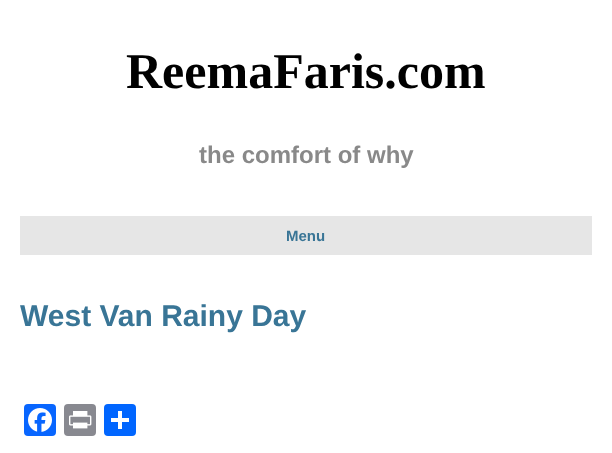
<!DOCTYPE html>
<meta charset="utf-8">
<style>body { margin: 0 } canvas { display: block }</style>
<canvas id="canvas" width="612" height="453"></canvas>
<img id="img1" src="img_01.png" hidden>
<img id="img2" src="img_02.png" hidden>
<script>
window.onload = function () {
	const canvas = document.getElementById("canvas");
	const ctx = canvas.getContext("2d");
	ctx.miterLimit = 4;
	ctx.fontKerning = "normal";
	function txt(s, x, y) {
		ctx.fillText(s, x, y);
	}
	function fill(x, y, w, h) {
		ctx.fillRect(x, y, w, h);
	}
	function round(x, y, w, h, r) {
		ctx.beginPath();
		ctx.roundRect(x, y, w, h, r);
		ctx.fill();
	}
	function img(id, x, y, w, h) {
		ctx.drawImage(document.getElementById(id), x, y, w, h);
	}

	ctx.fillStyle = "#FFFFFF";
	fill(0, 0, 612, 453);
	ctx.fillStyle = "#E6E6E6";
	fill(20, 216, 572, 39);
	ctx.fillStyle = "#0866FF";
	round(24, 404, 32, 32, 4);
	img("img1", 28, 408, 24, 24);
	ctx.fillStyle = "#888990";
	round(64, 404, 32, 32, 4);
	img("img2", 69, 411, 23, 18);
	ctx.fillStyle = "#0166FF";
	round(104, 404, 32, 32, 4);
	ctx.fillStyle = "#FFFFFF";
	fill(118, 411, 4, 18);
	fill(111, 418, 18, 4);
	ctx.font = "bold 50px Liberation Serif";
	ctx.fillStyle = "#000000";
	txt("ReemaFaris.com", 126, 88);
	ctx.font = "bold 24px Liberation Sans";
	ctx.fillStyle = "#898989";
	txt("the comfort of why", 199, 163);
	ctx.font = "bold 15px Liberation Sans";
	ctx.fillStyle = "#397596";
	txt("Menu", 286, 241);
	ctx.font = "bold 30px Liberation Sans";
	txt("West Van Rainy Day", 20, 326);
};
</script>
